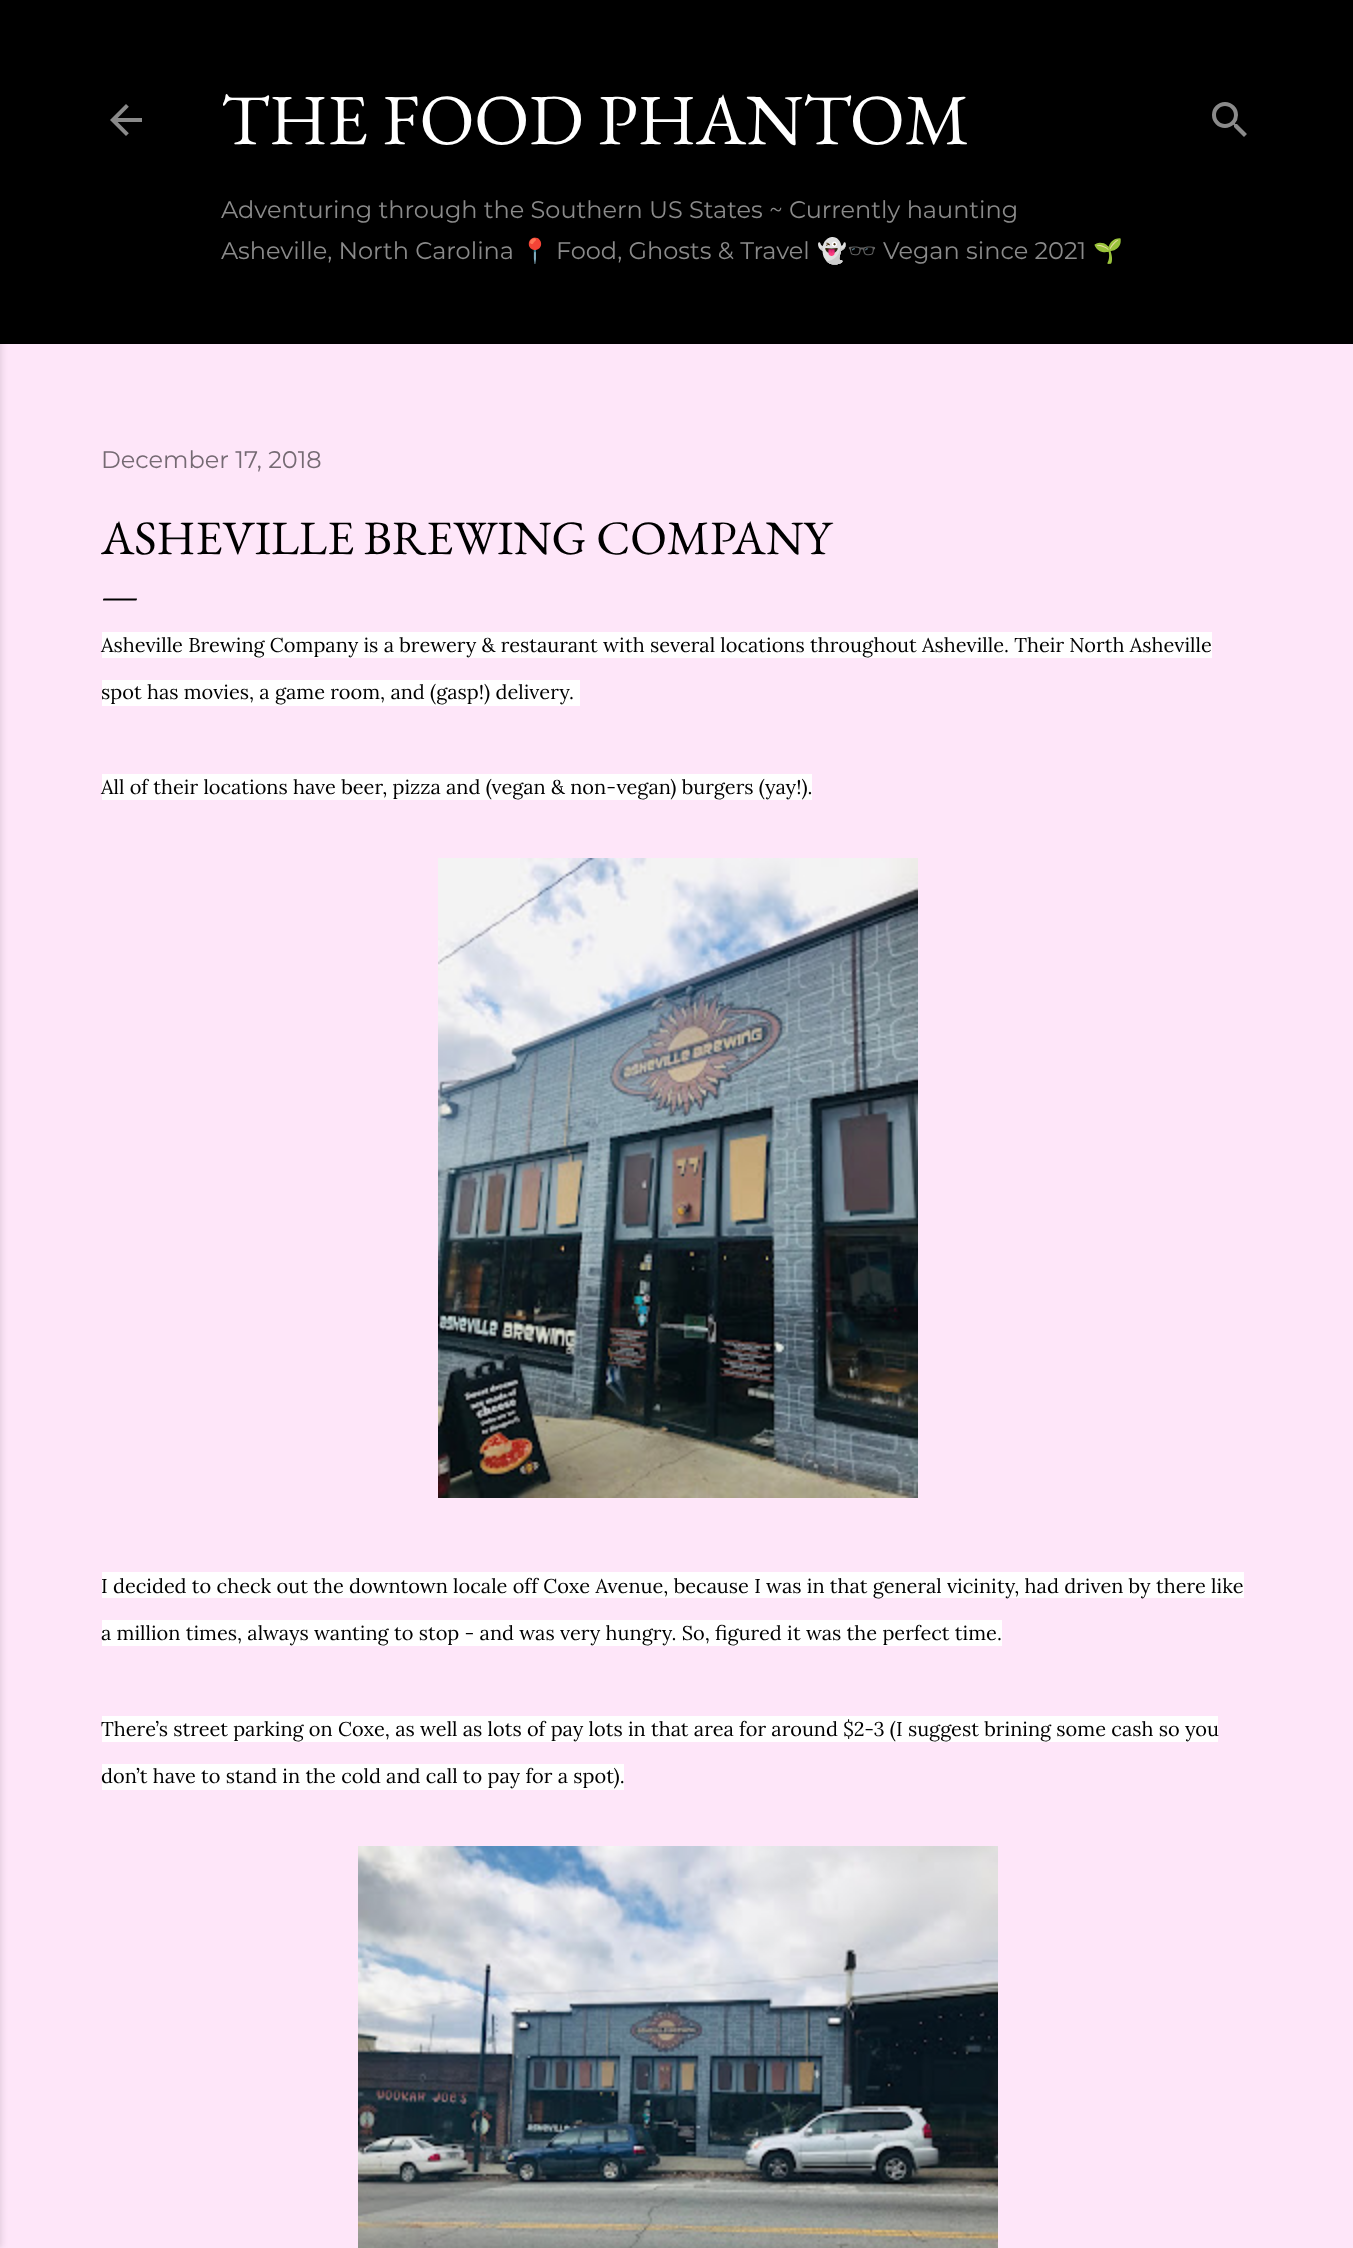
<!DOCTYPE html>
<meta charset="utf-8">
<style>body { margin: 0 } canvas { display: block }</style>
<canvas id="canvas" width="1353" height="2248"></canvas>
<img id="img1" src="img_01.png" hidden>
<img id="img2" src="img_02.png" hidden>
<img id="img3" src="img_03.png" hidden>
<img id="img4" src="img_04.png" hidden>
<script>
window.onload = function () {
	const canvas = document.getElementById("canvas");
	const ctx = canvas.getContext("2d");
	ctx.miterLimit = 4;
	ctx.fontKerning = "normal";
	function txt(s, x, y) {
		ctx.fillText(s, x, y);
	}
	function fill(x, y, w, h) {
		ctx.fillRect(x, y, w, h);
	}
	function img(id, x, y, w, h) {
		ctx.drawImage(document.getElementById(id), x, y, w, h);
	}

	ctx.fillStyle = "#FEE6F9";
	fill(0, 0, 1353, 2248);
	ctx.fillStyle = "#000000";
	fill(0, 0, 1353, 344);
	ctx.fillStyle = "rgba(0, 0, 0, 0.1)";
	ctx.filter = "blur(3px)";
	ctx.beginPath();
	ctx.rect(-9, 0, 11, 2248);
	ctx.fill();
	ctx.filter = "none";
	img("img1", 110, 104, 32, 32);
	img("img2", 1212, 102, 35, 35);
	ctx.fillStyle = "#FFFFFF";
	fill(102, 632, 1110, 26);
	fill(102, 680, 478, 26);
	fill(102, 774, 710, 26);
	img("img3", 438, 858, 480, 640);
	fill(102, 1572, 1142, 26);
	fill(102, 1620, 900, 26);
	fill(102, 1716, 1116, 26);
	fill(102, 1764, 522, 26);
	img("img4", 358, 1846, 640, 402);
	ctx.font = "72px EB Garamond";
	txt("THE FOOD PHANTOM", 221, 144);
	ctx.font = "24px Montserrat";
	ctx.fillStyle = "#8A8A8A";
	txt("Adventuring through the Southern US States ~ Currently haunting", 221, 218);
	txt("Asheville, North Carolina", 221, 259);
	ctx.font = "24px Noto Color Emoji";
	txt("📍", 520, 259);
	ctx.font = "24px Montserrat";
	txt("Food, Ghosts & Travel", 556, 259);
	ctx.font = "24px Noto Color Emoji";
	txt("👻🕶", 817, 259);
	ctx.font = "24px Montserrat";
	txt("Vegan since 2021", 883, 259);
	ctx.font = "24px Noto Color Emoji";
	txt("🌱", 1093, 259);
	ctx.font = "24px Montserrat";
	ctx.fillStyle = "#756A73";
	txt("December 17, 2018", 101, 468);
	ctx.font = "48px EB Garamond";
	ctx.fillStyle = "#000000";
	txt("ASHEVILLE BREWING COMPANY", 101, 554);
	ctx.font = "40px EB Garamond";
	txt("—", 101, 608);
	ctx.font = "20px Lora";
	txt("Asheville Brewing Company is a brewery & restaurant with several locations throughout Asheville. Their North Asheville", 101, 652);
	txt("spot has movies, a game room, and (gasp!) delivery.", 101, 699);
	txt("All of their locations have beer, pizza and (vegan & non-vegan) burgers (yay!).", 101, 794);
	txt("I decided to check out the downtown locale off Coxe Avenue, because I was in that general vicinity, had driven by there like", 101, 1593);
	txt("a million times, always wanting to stop - and was very hungry. So, figured it was the perfect time.", 101, 1640);
	txt("There’s street parking on Coxe, as well as lots of pay lots in that area for around $2-3 (I suggest brining some cash so you", 101, 1736);
	txt("don’t have to stand in the cold and call to pay for a spot).", 101, 1783);
};
</script>
